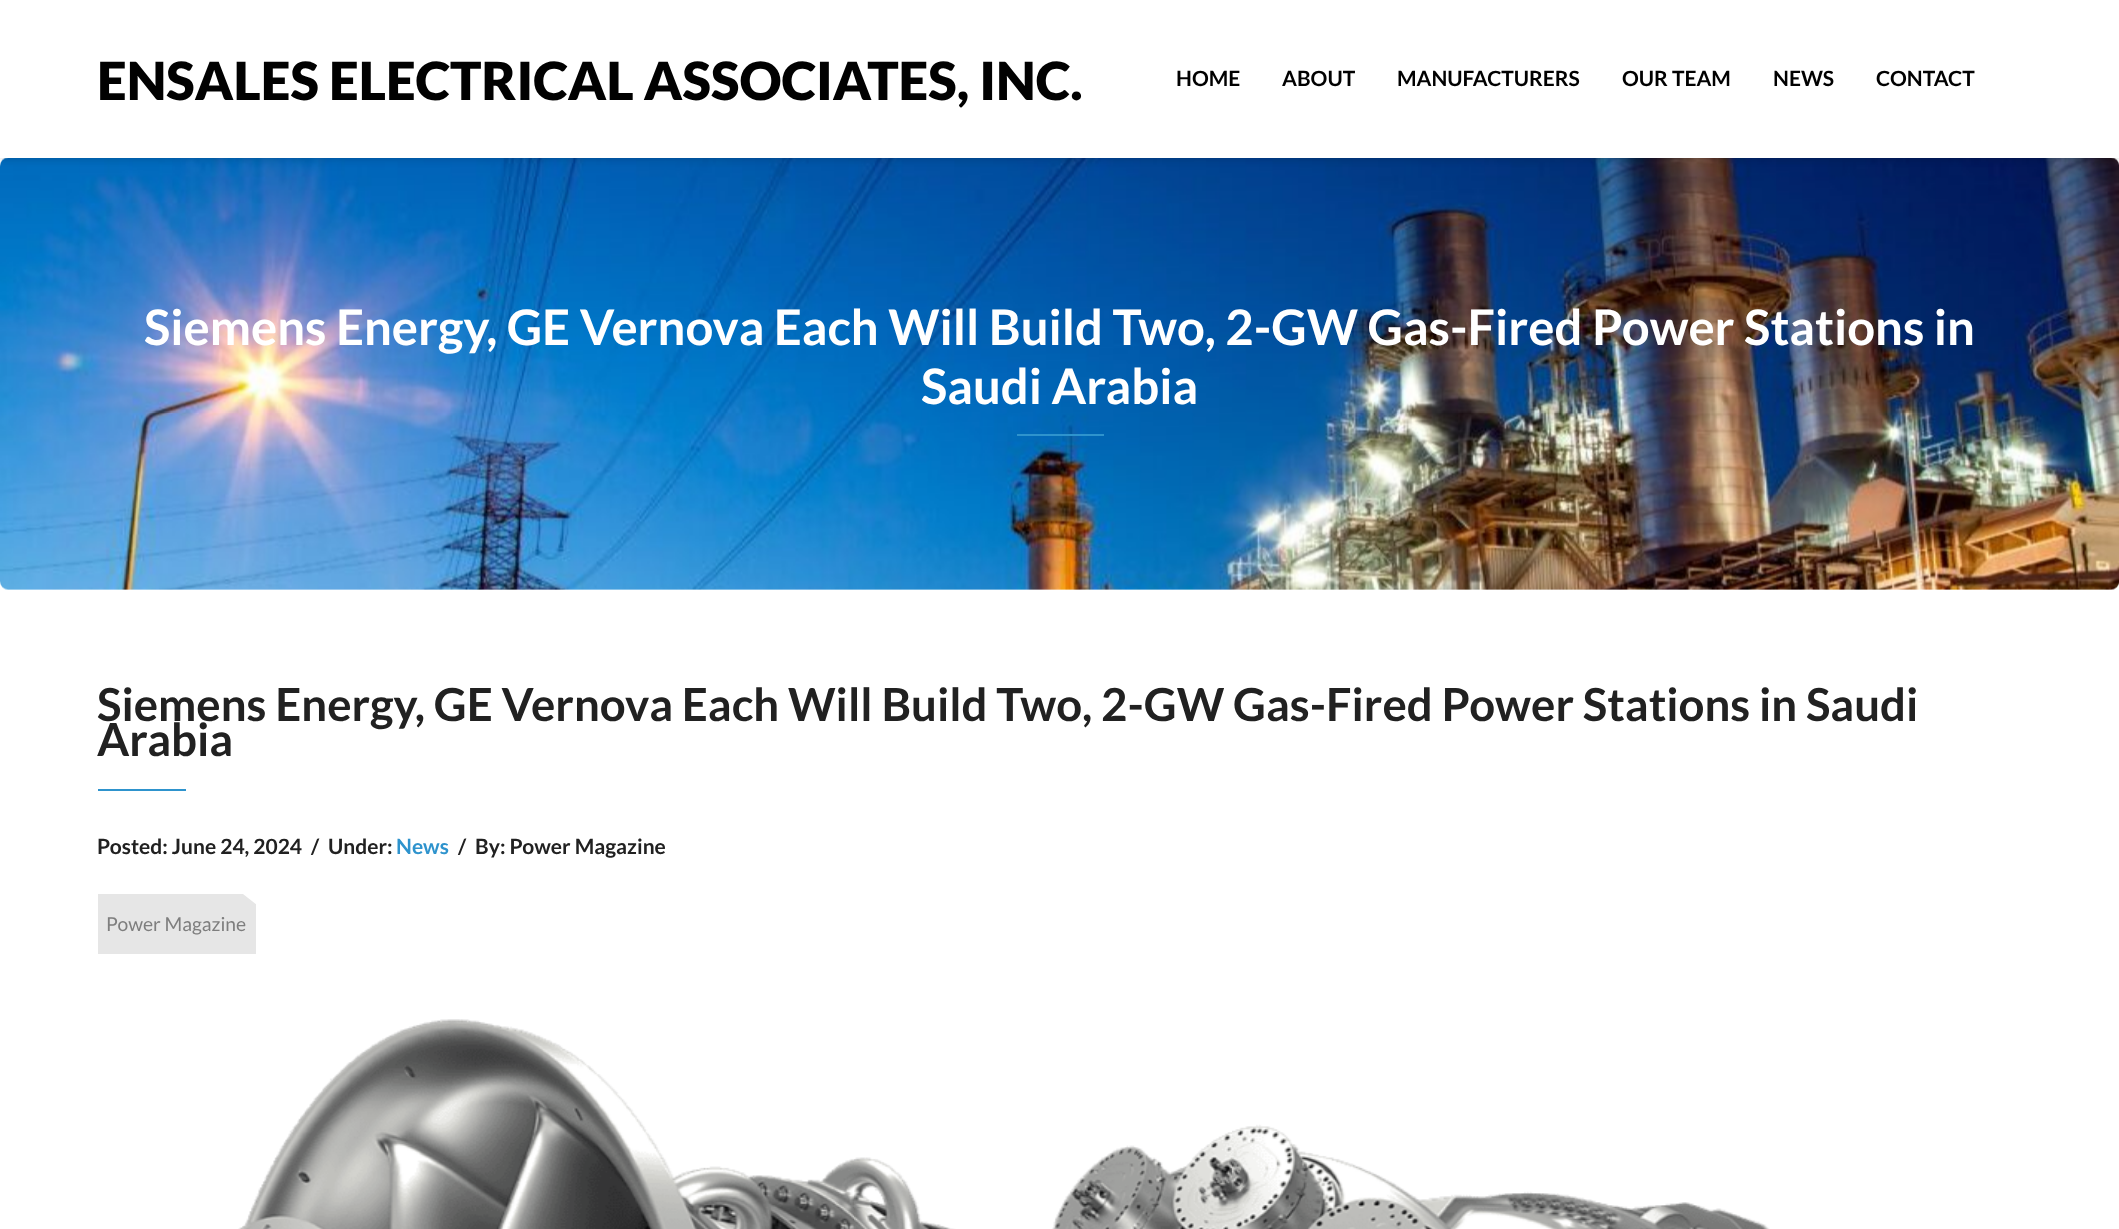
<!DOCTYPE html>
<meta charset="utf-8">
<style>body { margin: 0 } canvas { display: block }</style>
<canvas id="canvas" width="2119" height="1229"></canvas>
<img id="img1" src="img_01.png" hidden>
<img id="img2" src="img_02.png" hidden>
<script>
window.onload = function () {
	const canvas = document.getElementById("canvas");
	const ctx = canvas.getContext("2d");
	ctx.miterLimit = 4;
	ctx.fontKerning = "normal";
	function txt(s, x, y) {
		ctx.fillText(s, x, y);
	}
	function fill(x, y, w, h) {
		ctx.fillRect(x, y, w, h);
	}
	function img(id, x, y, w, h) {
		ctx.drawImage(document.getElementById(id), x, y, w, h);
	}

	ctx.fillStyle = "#FFFFFF";
	fill(0, 0, 2119, 1229);
	img("img1", 0, 158, 2119, 432);
	ctx.fillStyle = "rgba(0, 0, 0, 0.2)";
	ctx.filter = "blur(4.5px)";
	ctx.beginPath();
	ctx.rect(0, 0, 2119, 158);
	ctx.fill();
	ctx.filter = "none";
	ctx.fillStyle = "#FFFFFF";
	fill(0, 0, 2119, 158);
	ctx.fillStyle = "#2E93CD";
	fill(1017, 434, 87, 2);
	fill(98, 789, 88, 2);
	ctx.fillStyle = "#E6E6E6";
	fill(98, 894, 158, 60);
	ctx.fillStyle = "#FFFFFF";
	ctx.beginPath();
	ctx.moveTo(243, 894);
	ctx.lineTo(271, 894);
	ctx.lineTo(257, 905);
	ctx.closePath();
	ctx.fill();
	img("img2", 238, 1019, 1532, 210);
	ctx.font = "900 52.5px Lato";
	ctx.fillStyle = "#010101";
	txt("ENSALES ELECTRICAL ASSOCIATES, INC.", 97, 100);
	ctx.font = "bold 21px Lato";
	txt("HOME", 1176, 86);
	txt("ABOUT", 1282, 86);
	txt("MANUFACTURERS", 1397, 86);
	txt("OUR TEAM", 1622, 86);
	txt("NEWS", 1773, 86);
	txt("CONTACT", 1876, 86);
	ctx.font = "bold 49px Lato";
	ctx.fillStyle = "#FFFFFF";
	txt("Siemens Energy, GE Vernova Each Will Build Two, 2-GW Gas-Fired Power Stations in", 144, 345);
	txt("Saudi Arabia", 921, 404);
	ctx.font = "bold 45.5px Lato";
	ctx.fillStyle = "#212121";
	txt("Siemens Energy, GE Vernova Each Will Build Two, 2-GW Gas-Fired Power Stations in Saudi", 97, 721);
	txt("Arabia", 97, 756);
	ctx.font = "bold 21px Lato";
	txt("Posted: June 24, 2024", 97, 854);
	txt("/", 311, 854);
	txt("Under:", 328, 854);
	ctx.fillStyle = "#2E93CD";
	txt("News", 396, 854);
	ctx.fillStyle = "#212121";
	txt("/", 458, 854);
	txt("By: Power Magazine", 475, 854);
	ctx.font = "19.25px Lato";
	ctx.fillStyle = "#7E7E7E";
	txt("Power Magazine", 106, 931);
};
</script>
